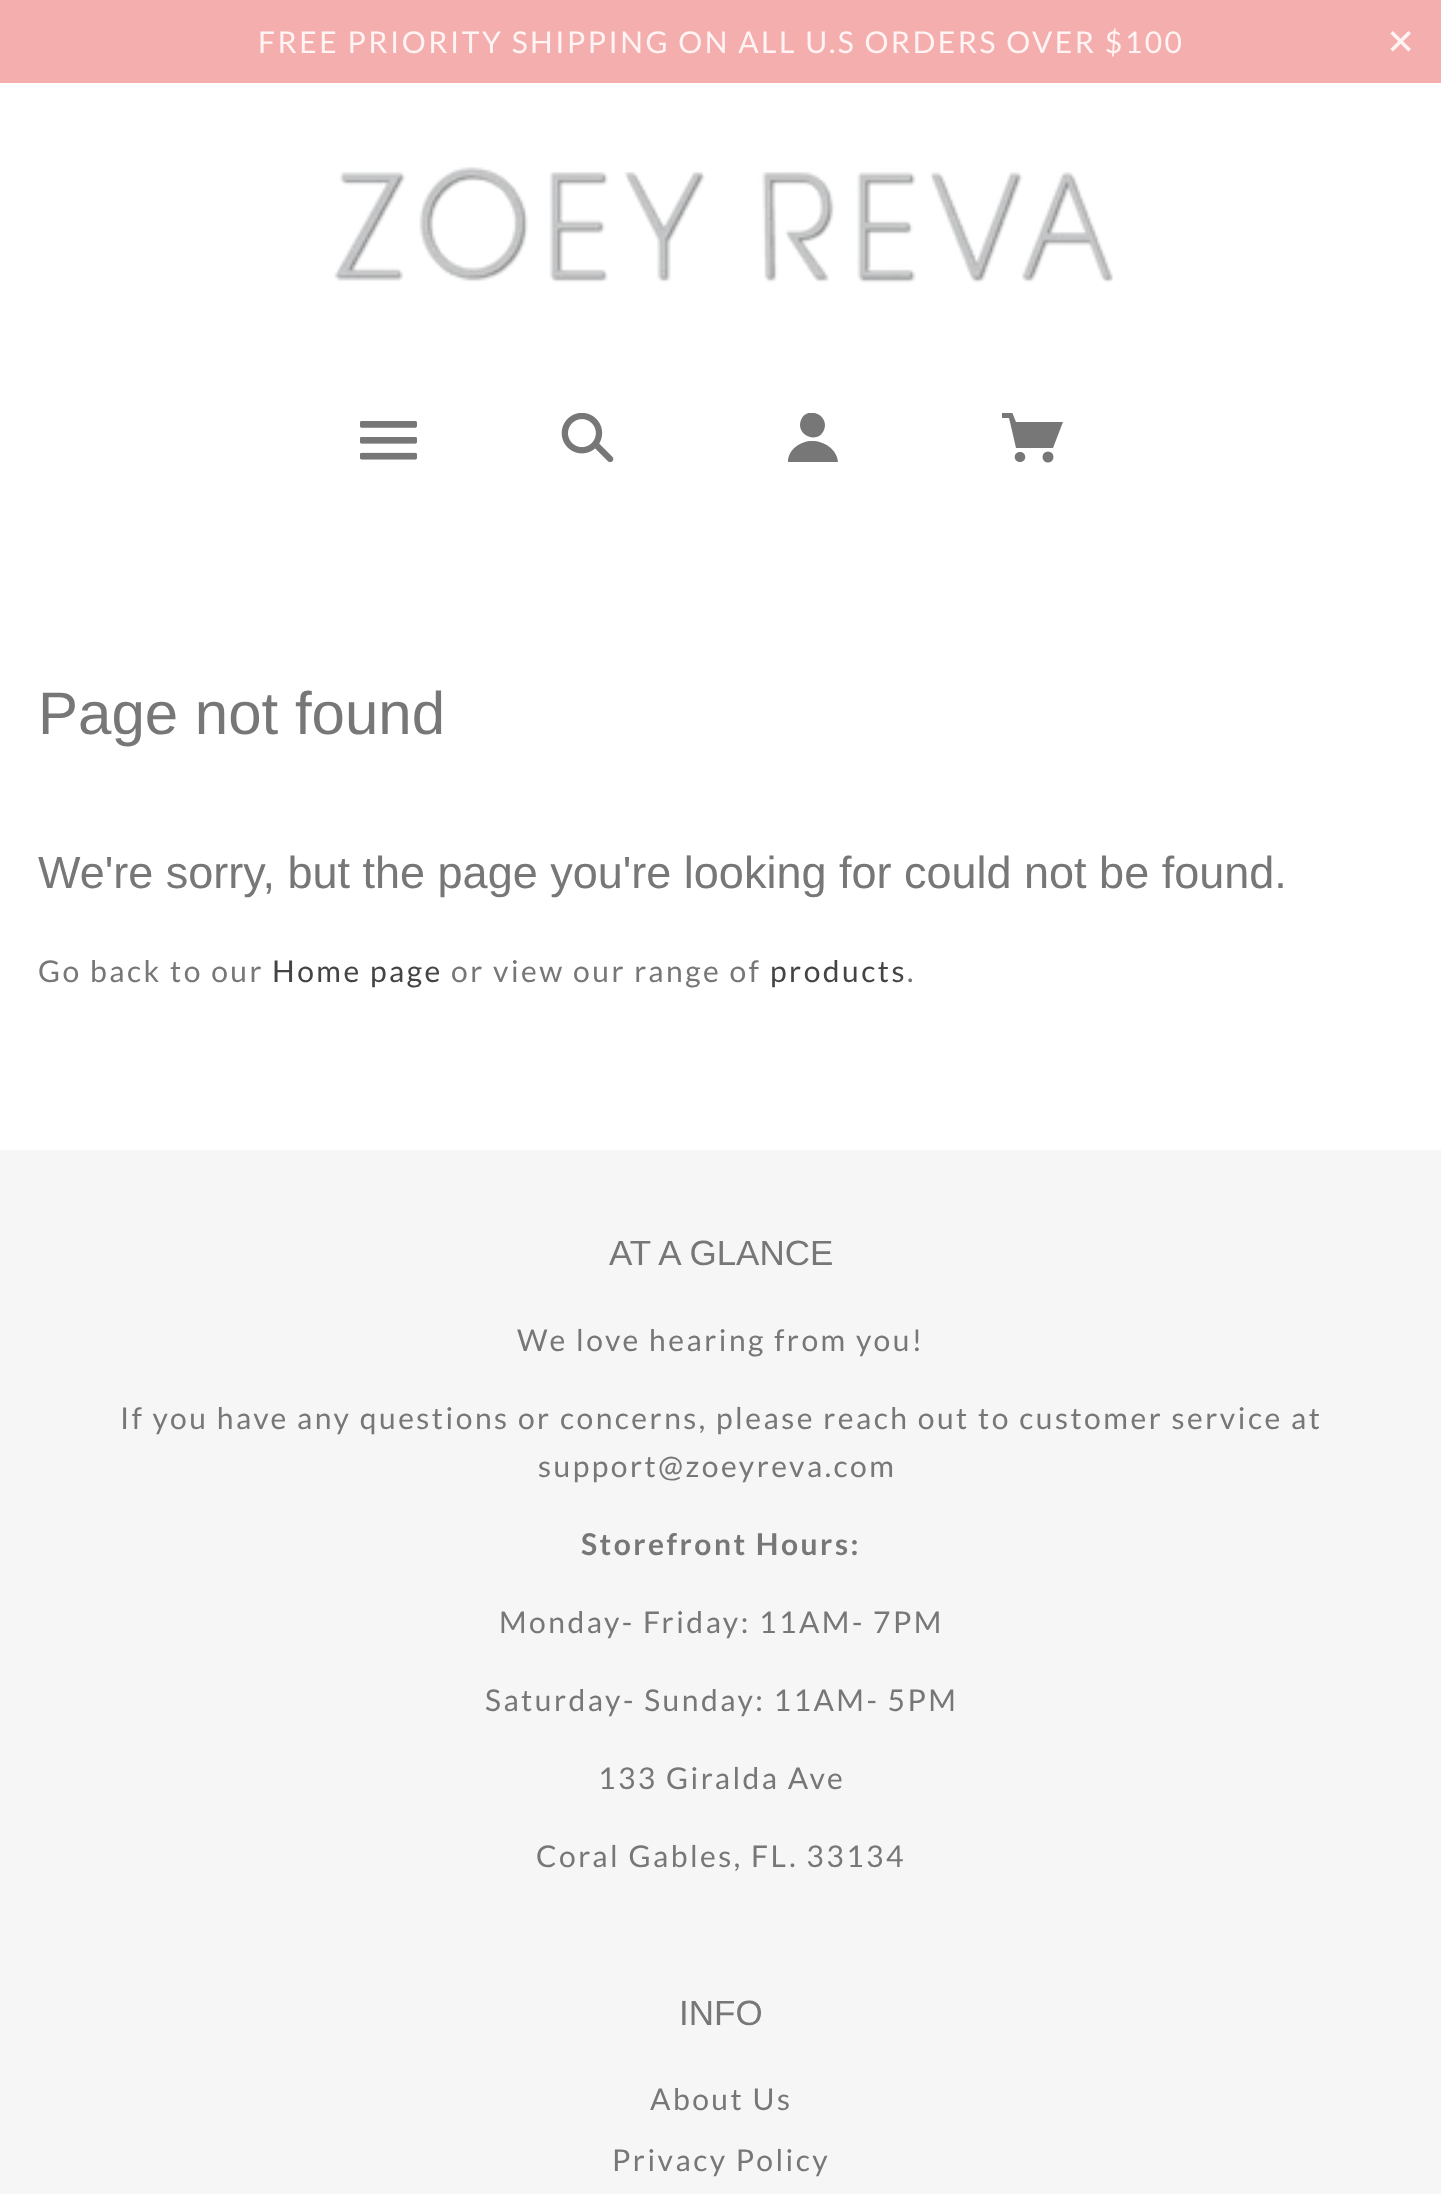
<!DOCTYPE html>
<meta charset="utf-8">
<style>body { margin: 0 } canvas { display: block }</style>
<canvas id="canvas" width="1441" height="2194"></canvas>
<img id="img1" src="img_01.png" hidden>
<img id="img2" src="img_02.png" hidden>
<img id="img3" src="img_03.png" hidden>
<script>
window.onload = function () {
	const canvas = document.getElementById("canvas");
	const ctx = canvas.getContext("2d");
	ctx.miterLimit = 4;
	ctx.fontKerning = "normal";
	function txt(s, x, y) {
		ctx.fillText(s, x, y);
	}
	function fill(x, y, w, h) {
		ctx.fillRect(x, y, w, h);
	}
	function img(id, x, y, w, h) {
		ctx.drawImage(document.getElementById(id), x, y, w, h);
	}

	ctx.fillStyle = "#FFFFFF";
	fill(0, 0, 1441, 2194);
	ctx.fillStyle = "#F4AEAE";
	fill(0, 0, 1441, 83);
	img("img1", 334, 167, 779, 116);
	img("img2", 360, 421, 57, 39);
	img("img3", 561, 413, 53, 50);
	ctx.save();
	ctx.beginPath();
	ctx.rect(763, 413, 100, 50);
	ctx.clip();
	ctx.fillStyle = "#777777";
	ctx.beginPath();
	ctx.moveTo(812, 441);
	ctx.bezierCurveTo(824, 441, 837, 449, 838, 462);
	ctx.lineTo(788, 462);
	ctx.bezierCurveTo(788, 449, 801, 441, 812, 441);
	ctx.closePath();
	ctx.moveTo(824, 430);
	ctx.bezierCurveTo(818, 445, 795, 435, 801, 420);
	ctx.bezierCurveTo(807, 405, 830, 415, 824, 430);
	ctx.closePath();
	ctx.fill();
	ctx.restore();
	ctx.save();
	ctx.beginPath();
	ctx.rect(983, 413, 100, 50);
	ctx.clip();
	ctx.fillStyle = "#777777";
	ctx.beginPath();
	ctx.moveTo(1016, 448);
	ctx.lineTo(1053, 448);
	ctx.lineTo(1063, 422);
	ctx.lineTo(1016, 422);
	ctx.lineTo(1012, 412);
	ctx.lineTo(1002, 412);
	ctx.lineTo(1002, 418);
	ctx.lineTo(1009, 418);
	ctx.lineTo(1010, 422);
	ctx.closePath();
	ctx.moveTo(1020, 452);
	ctx.bezierCurveTo(1013, 452, 1013, 462, 1020, 462);
	ctx.bezierCurveTo(1027, 462, 1027, 452, 1020, 452);
	ctx.closePath();
	ctx.fill();
	ctx.restore();
	ctx.fillStyle = "#777777";
	ctx.beginPath();
	ctx.arc(1048, 457, 5.5, 0, Math.PI * 2);
	ctx.fill();
	ctx.fillStyle = "#F6F6F6";
	fill(0, 1150, 1441, 1044);
	ctx.letterSpacing = "2.5px";
	ctx.font = "30px Lato";
	ctx.fillStyle = "#FFF3F3";
	txt("FREE PRIORITY SHIPPING ON ALL U.S ORDERS OVER $100", 258, 53);
	ctx.font = "35px DejaVu Sans";
	txt("✕", 1386, 54);
	ctx.letterSpacing = "0px";
	ctx.font = "60px Liberation Sans";
	ctx.fillStyle = "#777777";
	txt("Page not found", 38, 734);
	ctx.font = "45px Liberation Sans";
	txt("We're sorry, but the page you're looking for could not be found.", 38, 888);
	ctx.letterSpacing = "2.5px";
	ctx.font = "30px Lato";
	txt("Go back to our", 38, 982);
	ctx.fillStyle = "#444444";
	txt("Home page", 272, 982);
	ctx.fillStyle = "#777777";
	txt("or view our range of", 451, 982);
	ctx.fillStyle = "#444444";
	txt("products", 770, 982);
	ctx.fillStyle = "#777777";
	txt(".", 907, 982);
	ctx.letterSpacing = "0px";
	ctx.font = "35px Liberation Sans";
	txt("AT A GLANCE", 609, 1265);
	ctx.letterSpacing = "2.5px";
	ctx.font = "30px Lato";
	txt("We love hearing from you!", 517, 1351);
	txt("If you have any questions or concerns, please reach out to customer service at", 120, 1429);
	txt("support@zoeyreva.com", 538, 1477);
	ctx.font = "bold 30px Lato";
	txt("Storefront Hours:", 581, 1555);
	ctx.font = "30px Lato";
	txt("Monday- Friday: 11AM- 7PM", 499, 1633);
	txt("Saturday- Sunday: 11AM- 5PM", 485, 1711);
	txt("133 Giralda Ave", 598, 1789);
	txt("Coral Gables, FL. 33134", 536, 1867);
	ctx.letterSpacing = "0px";
	ctx.font = "35px Liberation Sans";
	txt("INFO", 679, 2025);
	ctx.letterSpacing = "2.5px";
	ctx.font = "30px Lato";
	txt("About Us", 650, 2110);
	txt("Privacy Policy", 612, 2171);
};
</script>
